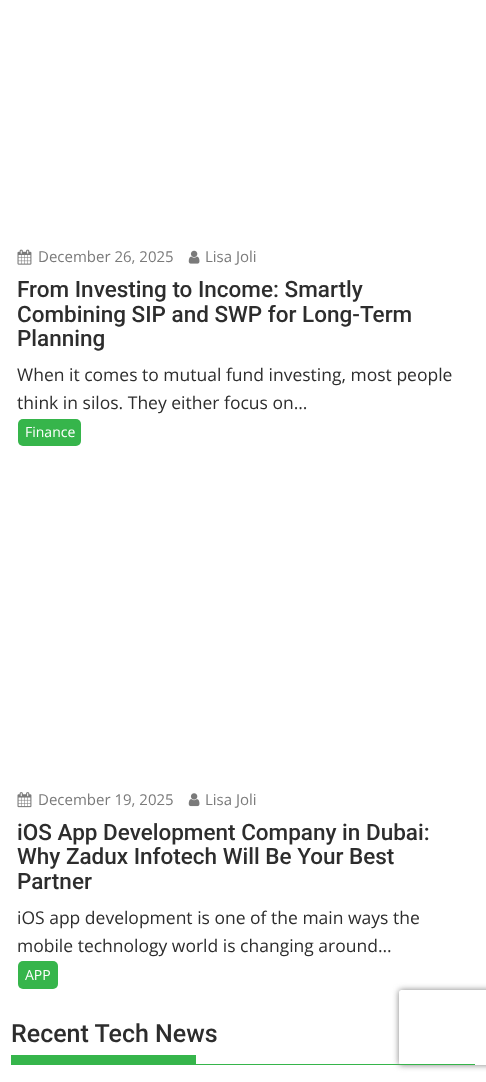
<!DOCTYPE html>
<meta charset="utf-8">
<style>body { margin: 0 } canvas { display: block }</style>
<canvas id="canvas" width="486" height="1082"></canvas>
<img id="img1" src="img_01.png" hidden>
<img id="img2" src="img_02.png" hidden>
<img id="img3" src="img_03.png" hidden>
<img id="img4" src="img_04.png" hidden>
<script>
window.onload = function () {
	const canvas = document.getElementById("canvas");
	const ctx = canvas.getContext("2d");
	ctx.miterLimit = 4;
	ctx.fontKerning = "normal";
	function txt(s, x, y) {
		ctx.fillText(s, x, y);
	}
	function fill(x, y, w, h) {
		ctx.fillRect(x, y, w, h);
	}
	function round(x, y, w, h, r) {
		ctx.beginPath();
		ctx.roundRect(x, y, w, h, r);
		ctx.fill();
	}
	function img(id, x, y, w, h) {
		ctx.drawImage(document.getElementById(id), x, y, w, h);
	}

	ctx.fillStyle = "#FFFFFF";
	fill(0, 0, 486, 1082);
	img("img1", 17, 249, 15, 16);
	img("img2", 188, 250, 12, 14);
	ctx.fillStyle = "#36B54B";
	round(18, 419, 63, 27, 5);
	img("img3", 17, 792, 15, 16);
	img("img4", 188, 793, 12, 14);
	round(18, 961, 40, 28, 5);
	fill(11, 1064, 464, 1);
	fill(11, 1055, 185, 9);
	ctx.save();
	ctx.beginPath();
	ctx.moveTo(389, 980);
	ctx.lineTo(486, 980);
	ctx.lineTo(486, 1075);
	ctx.lineTo(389, 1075);
	ctx.closePath();
	ctx.moveTo(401.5, 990);
	ctx.lineTo(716.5, 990);
	ctx.bezierCurveTo(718, 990, 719, 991, 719, 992.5);
	ctx.lineTo(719, 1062.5);
	ctx.bezierCurveTo(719, 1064, 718, 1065, 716.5, 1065);
	ctx.lineTo(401.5, 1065);
	ctx.bezierCurveTo(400, 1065, 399, 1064, 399, 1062.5);
	ctx.lineTo(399, 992.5);
	ctx.bezierCurveTo(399, 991, 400, 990, 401.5, 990);
	ctx.closePath();
	ctx.clip("evenodd");
	ctx.fillStyle = "#808080";
	ctx.filter = "blur(3px)";
	ctx.beginPath();
	ctx.roundRect(399, 990, 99, 75, 2.5);
	ctx.fill();
	ctx.filter = "none";
	ctx.restore();
	ctx.font = "15px Open Sans";
	ctx.fillStyle = "#7A7A7A";
	txt("December 26, 2025", 38, 262);
	txt("Lisa Joli", 205, 262);
	ctx.font = "500 22.5px Roboto";
	ctx.fillStyle = "#2D2D2D";
	txt("From Investing to Income: Smartly", 17, 297);
	txt("Combining SIP and SWP for Long-Term", 17, 322);
	txt("Planning", 17, 346);
	ctx.font = "17.5px Open Sans";
	txt("When it comes to mutual fund investing, most people", 17, 381);
	txt("think in silos. They either focus on...", 17, 409);
	ctx.font = "14px Open Sans";
	ctx.fillStyle = "#FFFFFF";
	txt("Finance", 25, 437);
	ctx.font = "15px Open Sans";
	ctx.fillStyle = "#7A7A7A";
	txt("December 19, 2025", 38, 805);
	txt("Lisa Joli", 205, 805);
	ctx.font = "500 22.5px Roboto";
	ctx.fillStyle = "#2D2D2D";
	txt("iOS App Development Company in Dubai:", 17, 840);
	txt("Why Zadux Infotech Will Be Your Best", 17, 864);
	txt("Partner", 17, 889);
	ctx.font = "17.5px Open Sans";
	txt("iOS app development is one of the main ways the", 17, 924);
	txt("mobile technology world is changing around...", 17, 952);
	ctx.font = "14px Open Sans";
	ctx.fillStyle = "#FFFFFF";
	txt("APP", 25, 980);
	ctx.font = "500 25px Roboto";
	ctx.fillStyle = "#2D2D2D";
	txt("Recent Tech News", 11, 1042);
};
</script>
